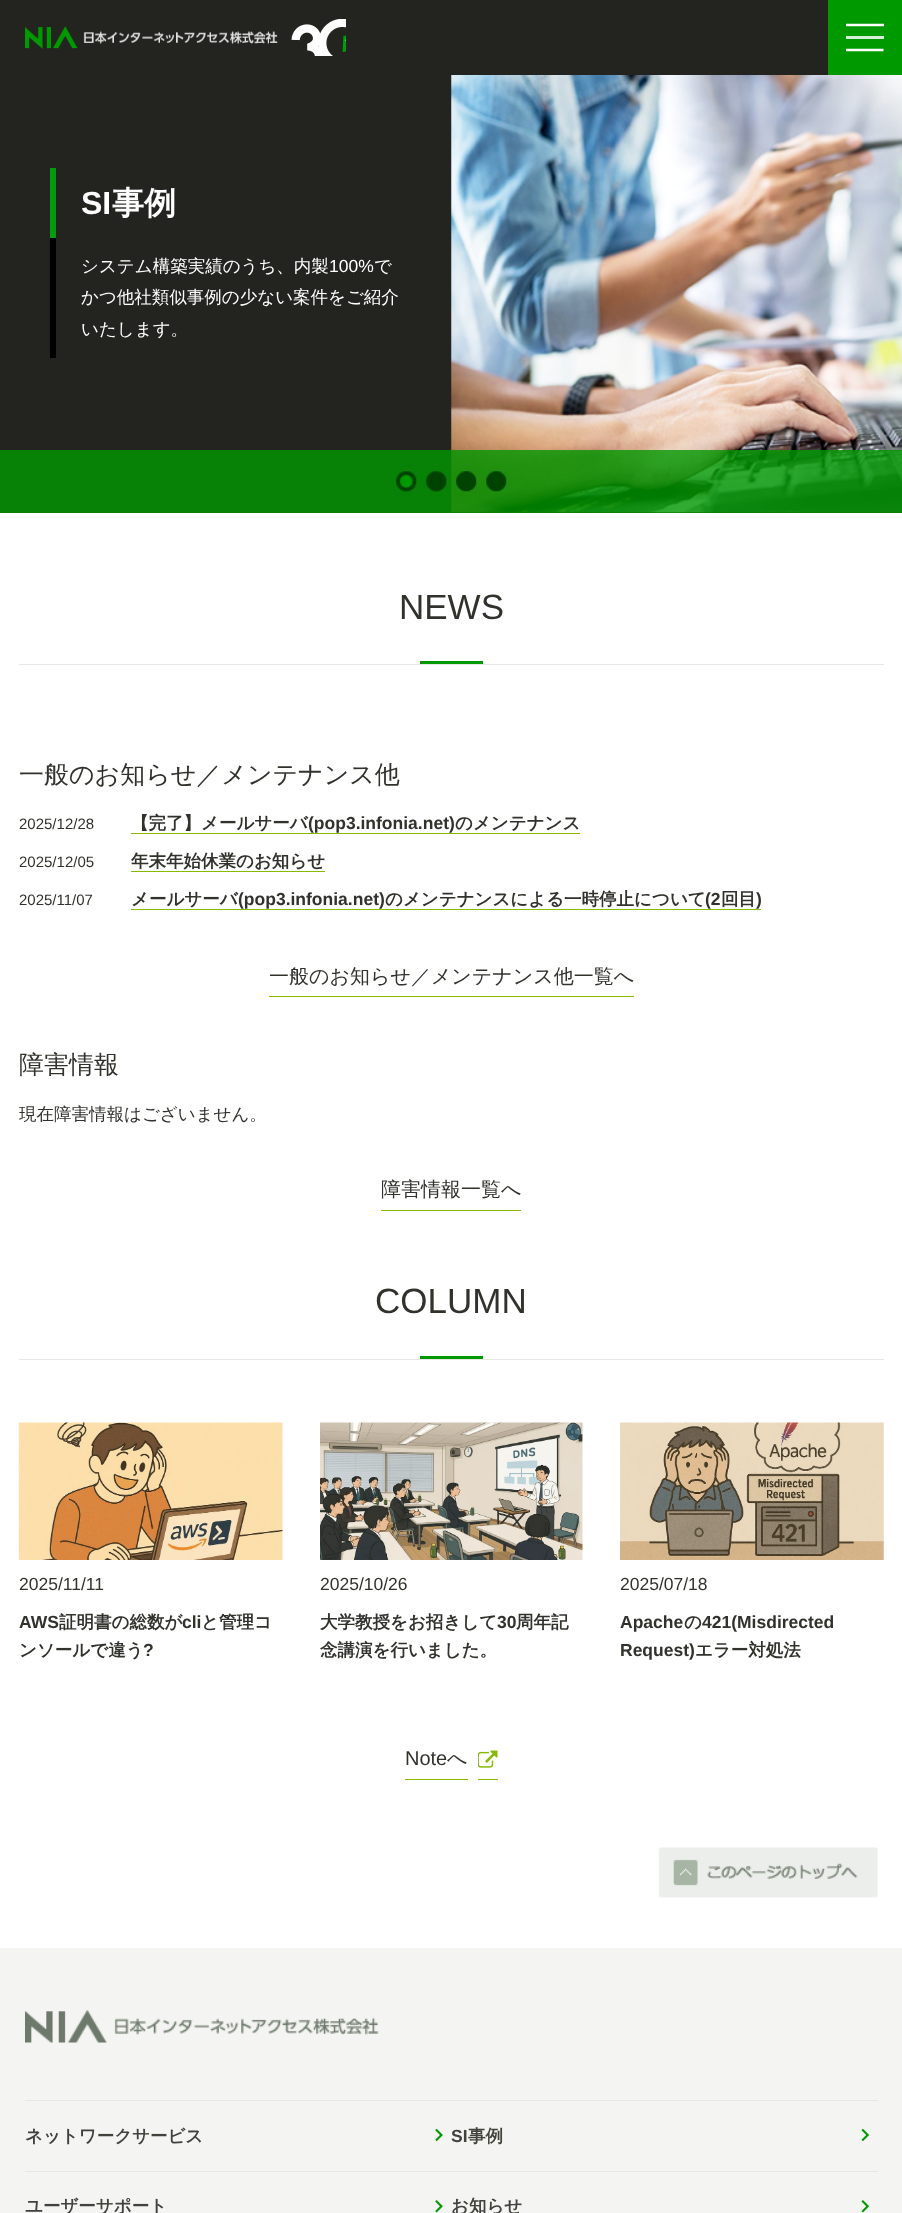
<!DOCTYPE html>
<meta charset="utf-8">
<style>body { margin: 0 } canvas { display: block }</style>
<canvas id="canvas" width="902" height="2213"></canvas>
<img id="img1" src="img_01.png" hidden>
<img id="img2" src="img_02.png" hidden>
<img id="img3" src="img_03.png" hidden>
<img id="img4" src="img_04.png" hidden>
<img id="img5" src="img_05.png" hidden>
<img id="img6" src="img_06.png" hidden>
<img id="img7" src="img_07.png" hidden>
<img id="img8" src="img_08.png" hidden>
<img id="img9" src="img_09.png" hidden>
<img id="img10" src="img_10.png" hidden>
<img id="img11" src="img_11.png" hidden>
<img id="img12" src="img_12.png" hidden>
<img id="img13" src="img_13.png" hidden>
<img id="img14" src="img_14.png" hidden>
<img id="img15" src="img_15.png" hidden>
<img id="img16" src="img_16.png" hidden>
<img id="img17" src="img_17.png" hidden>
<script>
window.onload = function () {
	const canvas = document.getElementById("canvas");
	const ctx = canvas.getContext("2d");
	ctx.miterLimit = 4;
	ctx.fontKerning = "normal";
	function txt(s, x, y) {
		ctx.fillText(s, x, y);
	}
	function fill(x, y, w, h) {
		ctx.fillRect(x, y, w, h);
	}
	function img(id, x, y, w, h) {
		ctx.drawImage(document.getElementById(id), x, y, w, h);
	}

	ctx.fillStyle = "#FFFFFF";
	fill(0, 0, 902, 2213);
	ctx.fillStyle = "#23231F";
	fill(0, 0, 828, 75);
	img("img1", 25, 26, 253, 23);
	img("img2", 291, 19, 55, 37);
	ctx.fillStyle = "#009900";
	fill(828, 0, 74, 75);
	ctx.beginPath();
	ctx.moveTo(846, 25);
	ctx.lineTo(884, 25);
	ctx.strokeStyle = "#FFFFFF";
	ctx.lineWidth = 2.5;
	ctx.stroke();
	ctx.fillStyle = "#D5EED5";
	fill(846, 36, 38, 3);
	ctx.beginPath();
	ctx.moveTo(846, 50);
	ctx.lineTo(883.5, 50);
	ctx.stroke();
	ctx.fillStyle = "#23241F";
	fill(0, 75, 902, 438);
	ctx.fillStyle = "#009C0C";
	fill(50, 168, 6, 70);
	ctx.fillStyle = "#000000";
	fill(50, 238, 6, 120);
	img("img3", 451, 75, 451, 438);
	ctx.fillStyle = "rgba(0, 153, 0, 0.8)";
	fill(0, 450, 902, 63);
	img("img4", 396, 471, 21, 21);
	img("img5", 426, 471, 21, 21);
	img("img6", 456, 471, 21, 21);
	img("img7", 486, 471, 21, 21);
	ctx.fillStyle = "#009900";
	fill(420, 661, 63, 3);
	ctx.fillStyle = "#E7E7E7";
	fill(19, 664, 865, 1);
	ctx.fillStyle = "#87BA01";
	fill(131, 833, 449, 1);
	fill(131, 871, 194, 1);
	fill(131, 909, 630, 1);
	fill(269, 996, 365, 1);
	fill(381, 1210, 140, 1);
	ctx.fillStyle = "#009900";
	fill(420, 1356, 63, 3);
	ctx.fillStyle = "#E7E7E7";
	fill(19, 1359, 865, 1);
	img("img8", 18, 1422, 265, 138);
	img("img9", 320, 1422, 263, 138);
	img("img10", 620, 1422, 264, 138);
	ctx.fillStyle = "#87BA01";
	fill(405, 1779, 63, 1);
	fill(478, 1779, 20, 1);
	img("img11", 478, 1750, 20, 18);
	img("img12", 658, 1847, 220, 51);
	ctx.fillStyle = "#F4F4F2";
	fill(0, 1948, 902, 265);
	img("img13", 25, 2010, 354, 33);
	ctx.fillStyle = "#E7E7E7";
	fill(25, 2100, 853, 1);
	img("img14", 435, 2128, 8, 14);
	img("img15", 861, 2128, 8, 14);
	fill(25, 2171, 853, 1);
	img("img16", 435, 2200, 8, 13);
	img("img17", 861, 2200, 9, 13);
	ctx.font = "bold 32px Liberation Sans";
	ctx.fillStyle = "#FFFFFF";
	txt("SI", 81, 214);
	ctx.font = "bold 32px WenQuanYi Zen Hei";
	txt("事例", 112, 214);
	ctx.font = "500 17.5px WenQuanYi Zen Hei";
	txt("システム構築実績のうち、内製", 81, 272);
	ctx.font = "17.5px Liberation Sans";
	txt("100%", 329, 272);
	ctx.font = "500 17.5px WenQuanYi Zen Hei";
	txt("で", 374, 272);
	txt("かつ他社類似事例の少ない案件をご紹介", 81, 303);
	txt("いたします。", 81, 335);
	ctx.font = "35px Liberation Sans";
	ctx.fillStyle = "#32322D";
	txt("NEWS", 399, 619);
	ctx.font = "500 25px WenQuanYi Zen Hei";
	txt("一般のお知らせ／メンテナンス他", 19, 783);
	ctx.font = "15px Liberation Sans";
	txt("2025/12/28", 19, 829);
	ctx.font = "bold 17.5px WenQuanYi Zen Hei";
	txt("【完了】メールサーバ", 131, 829);
	ctx.font = "bold 17.5px Liberation Sans";
	txt("(pop3.infonia.net)", 308, 829);
	ctx.font = "bold 17.5px WenQuanYi Zen Hei";
	txt("のメンテナンス", 455, 829);
	ctx.font = "15px Liberation Sans";
	txt("2025/12/05", 19, 867);
	ctx.font = "bold 17.5px WenQuanYi Zen Hei";
	txt("年末年始休業のお知らせ", 131, 867);
	ctx.font = "15px Liberation Sans";
	txt("2025/11/07", 19, 905);
	ctx.font = "bold 17.5px WenQuanYi Zen Hei";
	txt("メールサーバ", 131, 905);
	ctx.font = "bold 17.5px Liberation Sans";
	txt("(pop3.infonia.net)", 238, 905);
	ctx.font = "bold 17.5px WenQuanYi Zen Hei";
	txt("のメンテナンスによる一時停止について", 385, 905);
	ctx.font = "bold 17.5px Liberation Sans";
	txt("(2", 705, 905);
	ctx.font = "bold 17.5px WenQuanYi Zen Hei";
	txt("回目", 721, 905);
	ctx.font = "bold 17.5px Liberation Sans";
	txt(")", 756, 905);
	ctx.font = "500 20px WenQuanYi Zen Hei";
	txt("一般のお知らせ／メンテナンス他一覧へ", 269, 983);
	ctx.font = "500 25px WenQuanYi Zen Hei";
	txt("障害情報", 19, 1073);
	ctx.font = "500 17.5px WenQuanYi Zen Hei";
	txt("現在障害情報はございません。", 19, 1120);
	ctx.font = "500 20px WenQuanYi Zen Hei";
	txt("障害情報一覧へ", 381, 1196);
	ctx.font = "35px Liberation Sans";
	txt("COLUMN", 375, 1313);
	ctx.font = "17.5px Liberation Sans";
	txt("2025/11/11", 19, 1590);
	ctx.font = "bold 17.5px Liberation Sans";
	txt("AWS", 19, 1628);
	ctx.font = "bold 17.5px WenQuanYi Zen Hei";
	txt("証明書の総数が", 59, 1628);
	ctx.font = "bold 17.5px Liberation Sans";
	txt("cli", 182, 1628);
	ctx.font = "bold 17.5px WenQuanYi Zen Hei";
	txt("と管理コ", 201, 1628);
	txt("ンソールで違う", 19, 1656);
	ctx.font = "bold 17.5px Liberation Sans";
	txt("?", 143, 1656);
	ctx.font = "17.5px Liberation Sans";
	txt("2025/10/26", 320, 1590);
	ctx.font = "bold 17.5px WenQuanYi Zen Hei";
	txt("大学教授をお招きして", 320, 1628);
	ctx.font = "bold 17.5px Liberation Sans";
	txt("30", 497, 1628);
	ctx.font = "bold 17.5px WenQuanYi Zen Hei";
	txt("周年記", 516, 1628);
	txt("念講演を行いました。", 320, 1656);
	ctx.font = "17.5px Liberation Sans";
	txt("2025/07/18", 620, 1590);
	ctx.font = "bold 17.5px Liberation Sans";
	txt("Apache", 620, 1628);
	ctx.font = "bold 17.5px WenQuanYi Zen Hei";
	txt("の", 684, 1628);
	ctx.font = "bold 17.5px Liberation Sans";
	txt("421(Misdirected", 702, 1628);
	txt("Request)", 620, 1656);
	ctx.font = "bold 17.5px WenQuanYi Zen Hei";
	txt("エラー対処法", 695, 1656);
	ctx.font = "20px Liberation Sans";
	txt("Note", 405, 1765);
	ctx.font = "500 20px WenQuanYi Zen Hei";
	txt("へ", 447, 1765);
	ctx.font = "bold 17.5px WenQuanYi Zen Hei";
	ctx.fillStyle = "#42423C";
	txt("ネットワークサービス", 25, 2142);
	ctx.font = "bold 17.5px Liberation Sans";
	txt("SI", 451, 2142);
	ctx.font = "bold 17.5px WenQuanYi Zen Hei";
	txt("事例", 468, 2142);
	txt("ユーザーサポート", 25, 2212);
	txt("お知らせ", 451, 2212);
};
</script>
